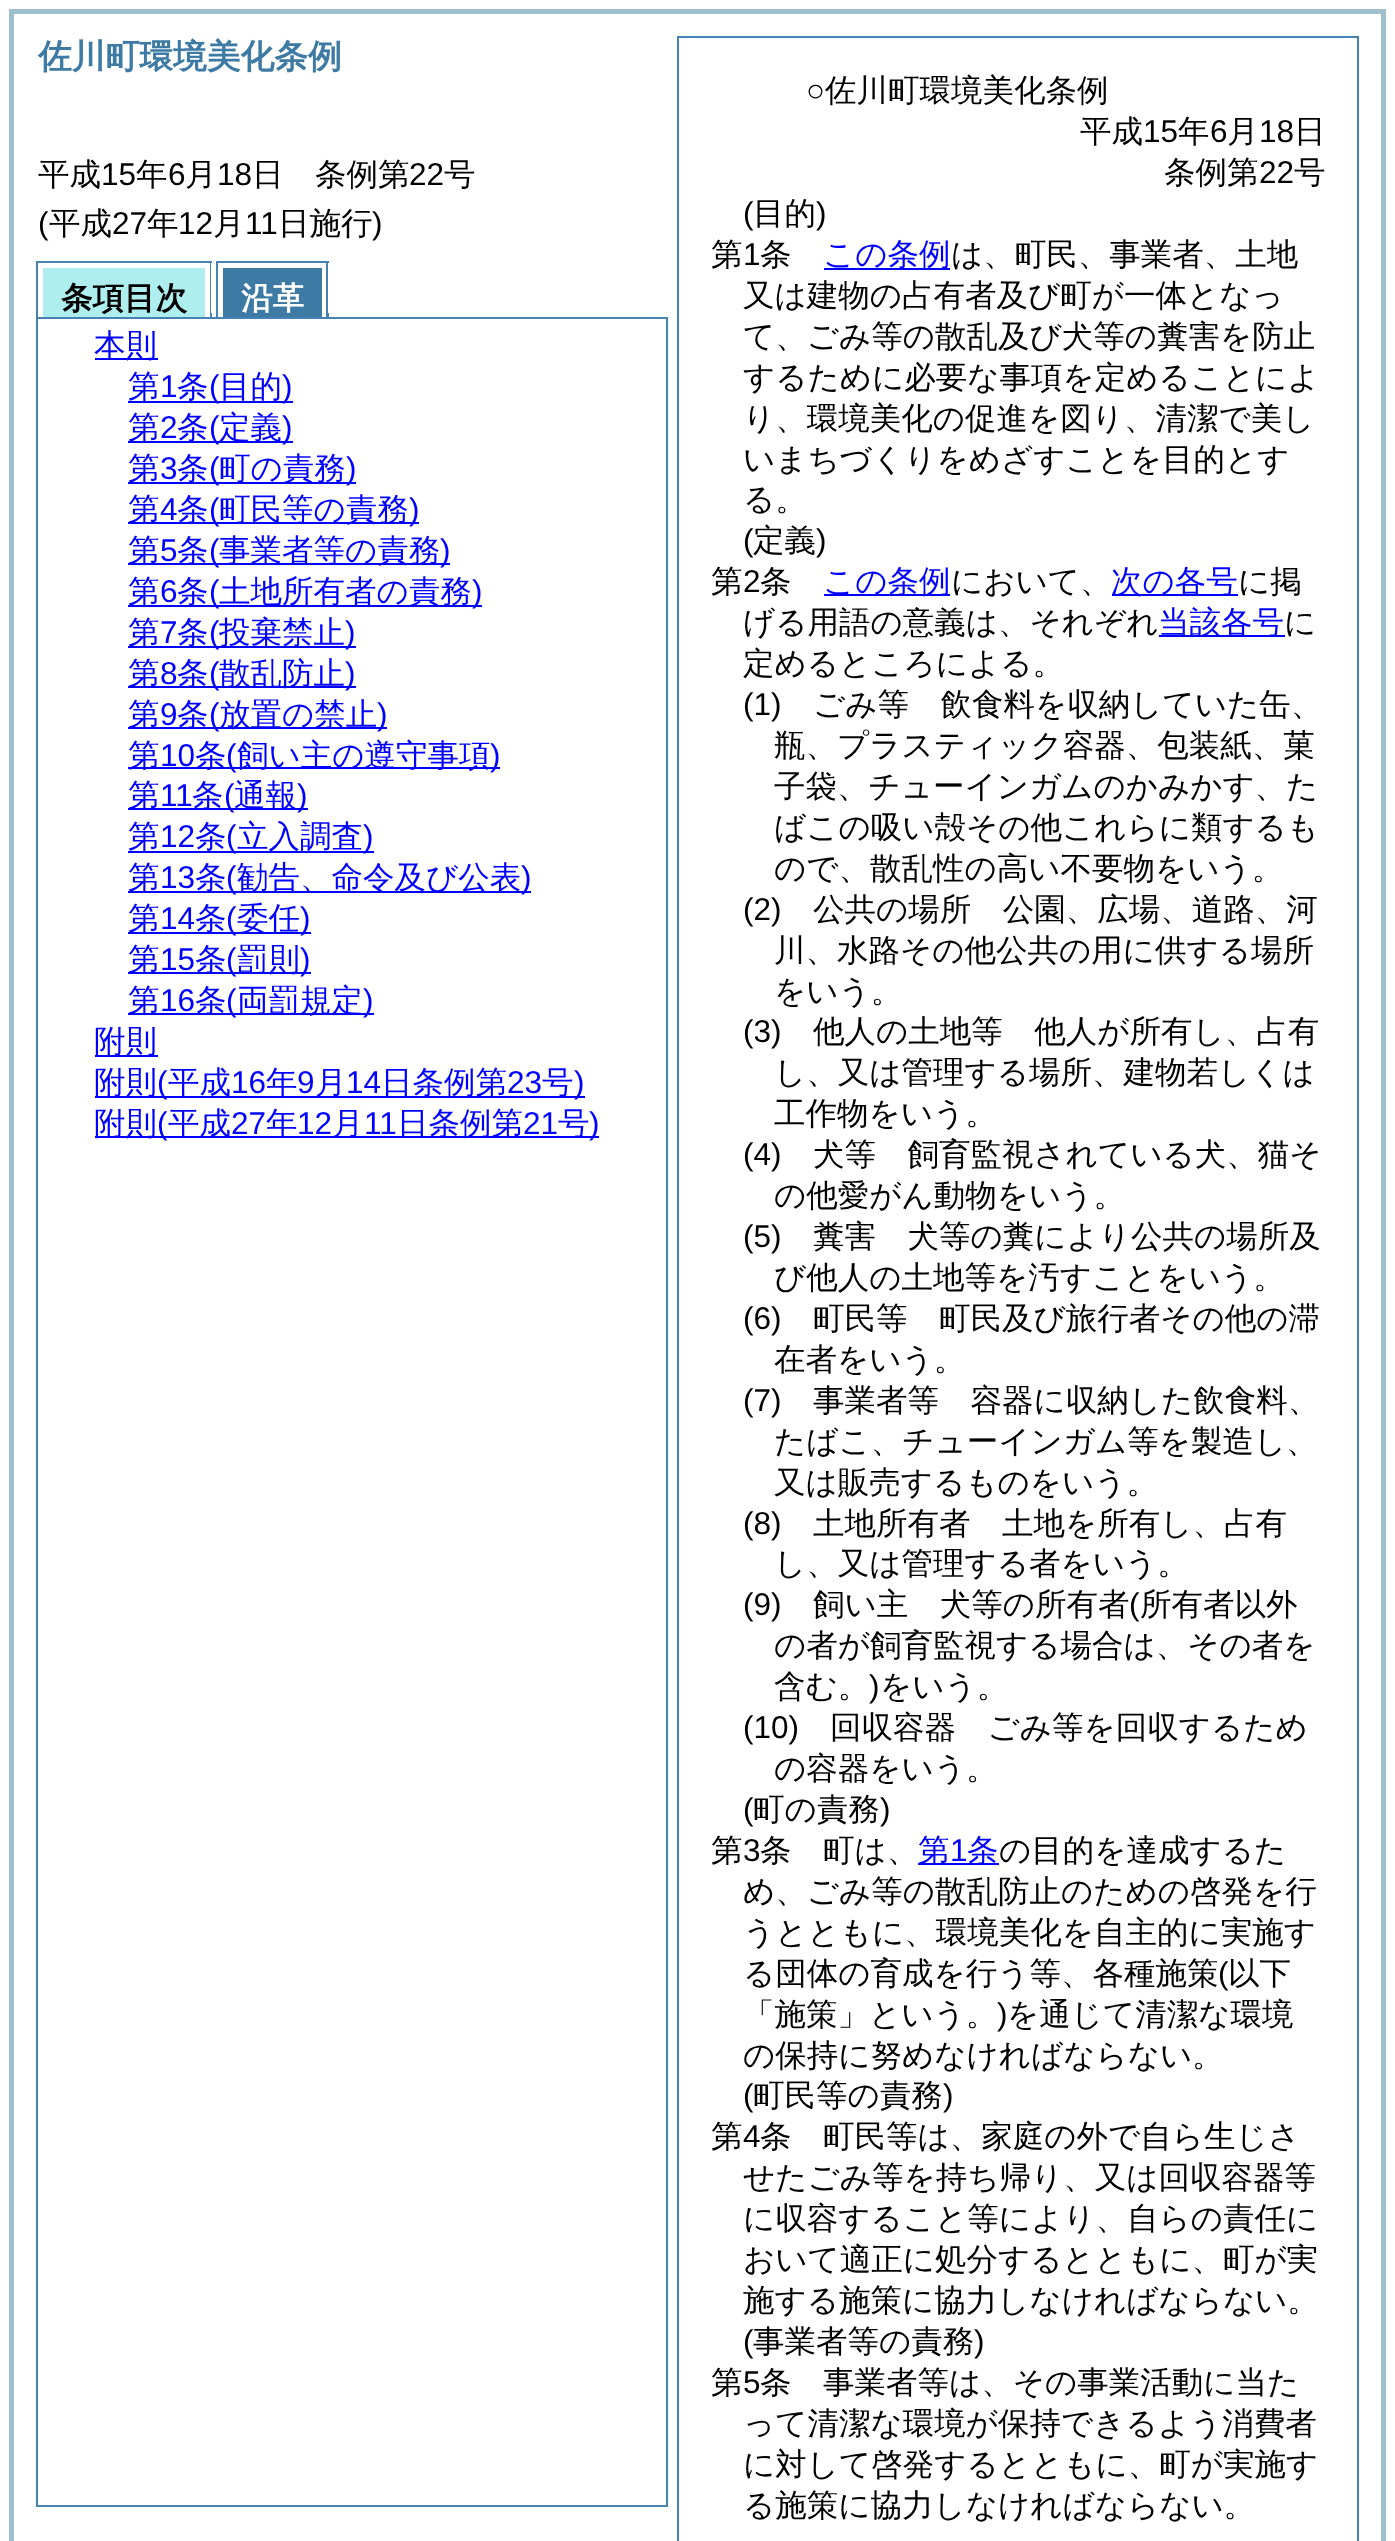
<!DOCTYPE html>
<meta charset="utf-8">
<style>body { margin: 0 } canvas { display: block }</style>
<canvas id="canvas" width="1395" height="2541"></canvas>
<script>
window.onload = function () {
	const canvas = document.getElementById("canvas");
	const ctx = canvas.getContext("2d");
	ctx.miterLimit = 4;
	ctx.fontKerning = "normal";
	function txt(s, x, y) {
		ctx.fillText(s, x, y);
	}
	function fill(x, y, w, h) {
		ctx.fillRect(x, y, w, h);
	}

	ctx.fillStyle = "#FFFFFF";
	fill(0, 0, 1395, 2541);
	ctx.strokeStyle = "#A0BFCC";
	ctx.lineWidth = 5;
	ctx.strokeRect(11.5, 11.5, 1372, 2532);
	ctx.fillStyle = "#4682B4";
	fill(36, 261, 176, 2);
	fill(209, 261, 2, 59);
	fill(211, 313, 1, 4);
	fill(36, 261, 2, 59);
	ctx.fillStyle = "#AFEEEE";
	fill(43, 268, 162, 49);
	ctx.fillStyle = "#FFFFFF";
	fill(209, 263, 1, 57);
	ctx.fillStyle = "#4682B4";
	fill(216, 261, 113, 2);
	fill(326, 261, 2, 59);
	fill(328, 313, 1, 4);
	fill(216, 261, 2, 59);
	ctx.fillStyle = "#3D7AA4";
	fill(223, 268, 99, 49);
	ctx.fillStyle = "#FFFFFF";
	fill(210, 319, 118, 1);
	ctx.strokeStyle = "#4682B4";
	ctx.lineWidth = 2;
	ctx.strokeRect(37, 318, 630, 2188);
	ctx.fillStyle = "#0000FF";
	fill(95, 358, 63, 2);
	fill(128, 401, 165, 2);
	fill(128, 441, 165, 2);
	fill(128, 482, 228, 2);
	fill(128, 522, 291, 2);
	fill(128, 563, 322, 2);
	fill(128, 605, 354, 2);
	fill(128, 646, 228, 2);
	fill(128, 686, 228, 2);
	fill(128, 727, 259, 2);
	fill(128, 767, 372, 2);
	fill(128, 808, 180, 2);
	fill(128, 851, 246, 2);
	fill(128, 891, 403, 2);
	fill(128, 932, 183, 2);
	fill(128, 972, 183, 2);
	fill(128, 1013, 246, 2);
	fill(95, 1055, 63, 2);
	fill(95, 1096, 490, 2);
	fill(95, 1136, 504, 2);
	ctx.strokeRect(678, 37, 680, 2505);
	fill(824, 268, 126, 2);
	fill(824, 594, 126, 2);
	fill(1112, 594, 126, 2);
	fill(1159, 635, 126, 2);
	fill(918, 1863, 81, 2);
	ctx.font = "bold 33.75px WenQuanYi Zen Hei";
	ctx.fillStyle = "#3D7AA4";
	txt("佐川町環境美化条例", 38, 68);
	ctx.font = "500 31.5px WenQuanYi Zen Hei";
	ctx.fillStyle = "#000000";
	txt("平成", 38, 185);
	ctx.font = "31.5px Liberation Sans";
	txt("15", 101, 185);
	ctx.font = "500 31.5px WenQuanYi Zen Hei";
	txt("年", 136, 185);
	ctx.font = "31.5px Liberation Sans";
	txt("6", 168, 185);
	ctx.font = "500 31.5px WenQuanYi Zen Hei";
	txt("月", 185, 185);
	ctx.font = "31.5px Liberation Sans";
	txt("18", 217, 185);
	ctx.font = "500 31.5px WenQuanYi Zen Hei";
	txt("日　条例第", 252, 185);
	ctx.font = "31.5px Liberation Sans";
	txt("22", 409, 185);
	ctx.font = "500 31.5px WenQuanYi Zen Hei";
	txt("号", 444, 185);
	ctx.font = "31.5px Liberation Sans";
	txt("(", 38, 234);
	ctx.font = "500 31.5px WenQuanYi Zen Hei";
	txt("平成", 49, 234);
	ctx.font = "31.5px Liberation Sans";
	txt("27", 112, 234);
	ctx.font = "500 31.5px WenQuanYi Zen Hei";
	txt("年", 147, 234);
	ctx.font = "31.5px Liberation Sans";
	txt("12", 178, 234);
	ctx.font = "500 31.5px WenQuanYi Zen Hei";
	txt("月", 213, 234);
	ctx.font = "31.5px Liberation Sans";
	txt("11", 245, 234);
	ctx.font = "500 31.5px WenQuanYi Zen Hei";
	txt("日施行", 278, 234);
	ctx.font = "31.5px Liberation Sans";
	txt(")", 372, 234);
	ctx.font = "bold 31.5px WenQuanYi Zen Hei";
	txt("条項目次", 61, 309);
	ctx.fillStyle = "#FFFFFF";
	txt("沿革", 241, 309);
	ctx.font = "500 31.5px WenQuanYi Zen Hei";
	ctx.fillStyle = "#0000FF";
	txt("本則", 94, 356);
	txt("第", 128, 397);
	ctx.font = "31.5px Liberation Sans";
	txt("1", 160, 397);
	ctx.font = "500 31.5px WenQuanYi Zen Hei";
	txt("条", 177, 397);
	ctx.font = "31.5px Liberation Sans";
	txt("(", 209, 397);
	ctx.font = "500 31.5px WenQuanYi Zen Hei";
	txt("目的", 219, 397);
	ctx.font = "31.5px Liberation Sans";
	txt(")", 282, 397);
	ctx.font = "500 31.5px WenQuanYi Zen Hei";
	txt("第", 128, 438);
	ctx.font = "31.5px Liberation Sans";
	txt("2", 160, 438);
	ctx.font = "500 31.5px WenQuanYi Zen Hei";
	txt("条", 177, 438);
	ctx.font = "31.5px Liberation Sans";
	txt("(", 209, 438);
	ctx.font = "500 31.5px WenQuanYi Zen Hei";
	txt("定義", 219, 438);
	ctx.font = "31.5px Liberation Sans";
	txt(")", 282, 438);
	ctx.font = "500 31.5px WenQuanYi Zen Hei";
	txt("第", 128, 479);
	ctx.font = "31.5px Liberation Sans";
	txt("3", 160, 479);
	ctx.font = "500 31.5px WenQuanYi Zen Hei";
	txt("条", 177, 479);
	ctx.font = "31.5px Liberation Sans";
	txt("(", 209, 479);
	ctx.font = "500 31.5px WenQuanYi Zen Hei";
	txt("町の責務", 219, 479);
	ctx.font = "31.5px Liberation Sans";
	txt(")", 346, 479);
	ctx.font = "500 31.5px WenQuanYi Zen Hei";
	txt("第", 128, 520);
	ctx.font = "31.5px Liberation Sans";
	txt("4", 160, 520);
	ctx.font = "500 31.5px WenQuanYi Zen Hei";
	txt("条", 177, 520);
	ctx.font = "31.5px Liberation Sans";
	txt("(", 209, 520);
	ctx.font = "500 31.5px WenQuanYi Zen Hei";
	txt("町民等の責務", 219, 520);
	ctx.font = "31.5px Liberation Sans";
	txt(")", 409, 520);
	ctx.font = "500 31.5px WenQuanYi Zen Hei";
	txt("第", 128, 561);
	ctx.font = "31.5px Liberation Sans";
	txt("5", 160, 561);
	ctx.font = "500 31.5px WenQuanYi Zen Hei";
	txt("条", 177, 561);
	ctx.font = "31.5px Liberation Sans";
	txt("(", 209, 561);
	ctx.font = "500 31.5px WenQuanYi Zen Hei";
	txt("事業者等の責務", 219, 561);
	ctx.font = "31.5px Liberation Sans";
	txt(")", 440, 561);
	ctx.font = "500 31.5px WenQuanYi Zen Hei";
	txt("第", 128, 602);
	ctx.font = "31.5px Liberation Sans";
	txt("6", 160, 602);
	ctx.font = "500 31.5px WenQuanYi Zen Hei";
	txt("条", 177, 602);
	ctx.font = "31.5px Liberation Sans";
	txt("(", 209, 602);
	ctx.font = "500 31.5px WenQuanYi Zen Hei";
	txt("土地所有者の責務", 219, 602);
	ctx.font = "31.5px Liberation Sans";
	txt(")", 472, 602);
	ctx.font = "500 31.5px WenQuanYi Zen Hei";
	txt("第", 128, 643);
	ctx.font = "31.5px Liberation Sans";
	txt("7", 160, 643);
	ctx.font = "500 31.5px WenQuanYi Zen Hei";
	txt("条", 177, 643);
	ctx.font = "31.5px Liberation Sans";
	txt("(", 209, 643);
	ctx.font = "500 31.5px WenQuanYi Zen Hei";
	txt("投棄禁止", 219, 643);
	ctx.font = "31.5px Liberation Sans";
	txt(")", 345, 643);
	ctx.font = "500 31.5px WenQuanYi Zen Hei";
	txt("第", 128, 684);
	ctx.font = "31.5px Liberation Sans";
	txt("8", 160, 684);
	ctx.font = "500 31.5px WenQuanYi Zen Hei";
	txt("条", 177, 684);
	ctx.font = "31.5px Liberation Sans";
	txt("(", 209, 684);
	ctx.font = "500 31.5px WenQuanYi Zen Hei";
	txt("散乱防止", 219, 684);
	ctx.font = "31.5px Liberation Sans";
	txt(")", 345, 684);
	ctx.font = "500 31.5px WenQuanYi Zen Hei";
	txt("第", 128, 725);
	ctx.font = "31.5px Liberation Sans";
	txt("9", 160, 725);
	ctx.font = "500 31.5px WenQuanYi Zen Hei";
	txt("条", 177, 725);
	ctx.font = "31.5px Liberation Sans";
	txt("(", 209, 725);
	ctx.font = "500 31.5px WenQuanYi Zen Hei";
	txt("放置の禁止", 219, 725);
	ctx.font = "31.5px Liberation Sans";
	txt(")", 377, 725);
	ctx.font = "500 31.5px WenQuanYi Zen Hei";
	txt("第", 128, 766);
	ctx.font = "31.5px Liberation Sans";
	txt("10", 160, 766);
	ctx.font = "500 31.5px WenQuanYi Zen Hei";
	txt("条", 195, 766);
	ctx.font = "31.5px Liberation Sans";
	txt("(", 226, 766);
	ctx.font = "500 31.5px WenQuanYi Zen Hei";
	txt("飼い主の遵守事項", 237, 766);
	ctx.font = "31.5px Liberation Sans";
	txt(")", 490, 766);
	ctx.font = "500 31.5px WenQuanYi Zen Hei";
	txt("第", 128, 806);
	ctx.font = "31.5px Liberation Sans";
	txt("11", 160, 806);
	ctx.font = "500 31.5px WenQuanYi Zen Hei";
	txt("条", 192, 806);
	ctx.font = "31.5px Liberation Sans";
	txt("(", 224, 806);
	ctx.font = "500 31.5px WenQuanYi Zen Hei";
	txt("通報", 234, 806);
	ctx.font = "31.5px Liberation Sans";
	txt(")", 297, 806);
	ctx.font = "500 31.5px WenQuanYi Zen Hei";
	txt("第", 128, 847);
	ctx.font = "31.5px Liberation Sans";
	txt("12", 160, 847);
	ctx.font = "500 31.5px WenQuanYi Zen Hei";
	txt("条", 195, 847);
	ctx.font = "31.5px Liberation Sans";
	txt("(", 226, 847);
	ctx.font = "500 31.5px WenQuanYi Zen Hei";
	txt("立入調査", 237, 847);
	ctx.font = "31.5px Liberation Sans";
	txt(")", 363, 847);
	ctx.font = "500 31.5px WenQuanYi Zen Hei";
	txt("第", 128, 888);
	ctx.font = "31.5px Liberation Sans";
	txt("13", 160, 888);
	ctx.font = "500 31.5px WenQuanYi Zen Hei";
	txt("条", 195, 888);
	ctx.font = "31.5px Liberation Sans";
	txt("(", 226, 888);
	ctx.font = "500 31.5px WenQuanYi Zen Hei";
	txt("勧告、命令及び公表", 237, 888);
	ctx.font = "31.5px Liberation Sans";
	txt(")", 521, 888);
	ctx.font = "500 31.5px WenQuanYi Zen Hei";
	txt("第", 128, 929);
	ctx.font = "31.5px Liberation Sans";
	txt("14", 160, 929);
	ctx.font = "500 31.5px WenQuanYi Zen Hei";
	txt("条", 195, 929);
	ctx.font = "31.5px Liberation Sans";
	txt("(", 226, 929);
	ctx.font = "500 31.5px WenQuanYi Zen Hei";
	txt("委任", 237, 929);
	ctx.font = "31.5px Liberation Sans";
	txt(")", 300, 929);
	ctx.font = "500 31.5px WenQuanYi Zen Hei";
	txt("第", 128, 970);
	ctx.font = "31.5px Liberation Sans";
	txt("15", 160, 970);
	ctx.font = "500 31.5px WenQuanYi Zen Hei";
	txt("条", 195, 970);
	ctx.font = "31.5px Liberation Sans";
	txt("(", 226, 970);
	ctx.font = "500 31.5px WenQuanYi Zen Hei";
	txt("罰則", 237, 970);
	ctx.font = "31.5px Liberation Sans";
	txt(")", 300, 970);
	ctx.font = "500 31.5px WenQuanYi Zen Hei";
	txt("第", 128, 1011);
	ctx.font = "31.5px Liberation Sans";
	txt("16", 160, 1011);
	ctx.font = "500 31.5px WenQuanYi Zen Hei";
	txt("条", 195, 1011);
	ctx.font = "31.5px Liberation Sans";
	txt("(", 226, 1011);
	ctx.font = "500 31.5px WenQuanYi Zen Hei";
	txt("両罰規定", 237, 1011);
	ctx.font = "31.5px Liberation Sans";
	txt(")", 363, 1011);
	ctx.font = "500 31.5px WenQuanYi Zen Hei";
	txt("附則", 94, 1052);
	txt("附則", 94, 1093);
	ctx.font = "31.5px Liberation Sans";
	txt("(", 157, 1093);
	ctx.font = "500 31.5px WenQuanYi Zen Hei";
	txt("平成", 168, 1093);
	ctx.font = "31.5px Liberation Sans";
	txt("16", 231, 1093);
	ctx.font = "500 31.5px WenQuanYi Zen Hei";
	txt("年", 266, 1093);
	ctx.font = "31.5px Liberation Sans";
	txt("9", 297, 1093);
	ctx.font = "500 31.5px WenQuanYi Zen Hei";
	txt("月", 315, 1093);
	ctx.font = "31.5px Liberation Sans";
	txt("14", 346, 1093);
	ctx.font = "500 31.5px WenQuanYi Zen Hei";
	txt("日条例第", 381, 1093);
	ctx.font = "31.5px Liberation Sans";
	txt("23", 507, 1093);
	ctx.font = "500 31.5px WenQuanYi Zen Hei";
	txt("号", 542, 1093);
	ctx.font = "31.5px Liberation Sans";
	txt(")", 574, 1093);
	ctx.font = "500 31.5px WenQuanYi Zen Hei";
	txt("附則", 94, 1134);
	ctx.font = "31.5px Liberation Sans";
	txt("(", 157, 1134);
	ctx.font = "500 31.5px WenQuanYi Zen Hei";
	txt("平成", 168, 1134);
	ctx.font = "31.5px Liberation Sans";
	txt("27", 231, 1134);
	ctx.font = "500 31.5px WenQuanYi Zen Hei";
	txt("年", 266, 1134);
	ctx.font = "31.5px Liberation Sans";
	txt("12", 297, 1134);
	ctx.font = "500 31.5px WenQuanYi Zen Hei";
	txt("月", 332, 1134);
	ctx.font = "31.5px Liberation Sans";
	txt("11", 364, 1134);
	ctx.font = "500 31.5px WenQuanYi Zen Hei";
	txt("日条例第", 397, 1134);
	ctx.font = "31.5px Liberation Sans";
	txt("21", 523, 1134);
	ctx.font = "500 31.5px WenQuanYi Zen Hei";
	txt("号", 558, 1134);
	ctx.font = "31.5px Liberation Sans";
	txt(")", 589, 1134);
	ctx.fillStyle = "#000000";
	txt("○", 806, 101);
	ctx.font = "500 31.5px WenQuanYi Zen Hei";
	txt("佐川町環境美化条例", 825, 101);
	txt("平成", 1080, 142);
	ctx.font = "31.5px Liberation Sans";
	txt("15", 1143, 142);
	ctx.font = "500 31.5px WenQuanYi Zen Hei";
	txt("年", 1178, 142);
	ctx.font = "31.5px Liberation Sans";
	txt("6", 1210, 142);
	ctx.font = "500 31.5px WenQuanYi Zen Hei";
	txt("月", 1227, 142);
	ctx.font = "31.5px Liberation Sans";
	txt("18", 1259, 142);
	ctx.font = "500 31.5px WenQuanYi Zen Hei";
	txt("日", 1294, 142);
	txt("条例第", 1164, 183);
	ctx.font = "31.5px Liberation Sans";
	txt("22", 1259, 183);
	ctx.font = "500 31.5px WenQuanYi Zen Hei";
	txt("号", 1294, 183);
	ctx.font = "31.5px Liberation Sans";
	txt("(", 743, 224);
	ctx.font = "500 31.5px WenQuanYi Zen Hei";
	txt("目的", 753, 224);
	ctx.font = "31.5px Liberation Sans";
	txt(")", 816, 224);
	ctx.font = "500 31.5px WenQuanYi Zen Hei";
	txt("第", 711, 265);
	ctx.font = "31.5px Liberation Sans";
	txt("1", 743, 265);
	ctx.font = "500 31.5px WenQuanYi Zen Hei";
	txt("条", 760, 265);
	ctx.fillStyle = "#0000FF";
	txt("この条例", 823, 265);
	ctx.fillStyle = "#000000";
	txt("は、町民、事業者、土地", 951, 265);
	txt("又は建物の占有者及び町が一体となっ", 743, 306);
	txt("て、ごみ等の散乱及び犬等の糞害を防止", 743, 347);
	txt("するために必要な事項を定めることによ", 743, 388);
	txt("り、環境美化の促進を図り、清潔で美し", 743, 429);
	txt("いまちづくりをめざすことを目的とす", 743, 470);
	txt("る。", 743, 510);
	ctx.font = "31.5px Liberation Sans";
	txt("(", 743, 551);
	ctx.font = "500 31.5px WenQuanYi Zen Hei";
	txt("定義", 753, 551);
	ctx.font = "31.5px Liberation Sans";
	txt(")", 816, 551);
	ctx.font = "500 31.5px WenQuanYi Zen Hei";
	txt("第", 711, 592);
	ctx.font = "31.5px Liberation Sans";
	txt("2", 743, 592);
	ctx.font = "500 31.5px WenQuanYi Zen Hei";
	txt("条", 760, 592);
	ctx.fillStyle = "#0000FF";
	txt("この条例", 823, 592);
	ctx.fillStyle = "#000000";
	txt("において、", 951, 592);
	ctx.fillStyle = "#0000FF";
	txt("次の各号", 1111, 592);
	ctx.fillStyle = "#000000";
	txt("に掲", 1238, 592);
	txt("げる用語の意義は、それぞれ", 743, 633);
	ctx.fillStyle = "#0000FF";
	txt("当該各号", 1158, 633);
	ctx.fillStyle = "#000000";
	txt("に", 1284, 633);
	txt("定めるところによる。", 743, 674);
	ctx.font = "31.5px Liberation Sans";
	txt("(1)", 743, 715);
	ctx.font = "500 31.5px WenQuanYi Zen Hei";
	txt("ごみ等　飲食料を収納していた缶、", 813, 715);
	txt("瓶、プラスティック容器、包装紙、菓", 774, 756);
	txt("子袋、チューインガムのかみかす、た", 774, 797);
	txt("ばこの吸い殻その他これらに類するも", 774, 838);
	txt("ので、散乱性の高い不要物をいう。", 774, 879);
	ctx.font = "31.5px Liberation Sans";
	txt("(2)", 743, 920);
	ctx.font = "500 31.5px WenQuanYi Zen Hei";
	txt("公共の場所　公園、広場、道路、河", 813, 920);
	txt("川、水路その他公共の用に供する場所", 774, 961);
	txt("をいう。", 774, 1002);
	ctx.font = "31.5px Liberation Sans";
	txt("(3)", 743, 1042);
	ctx.font = "500 31.5px WenQuanYi Zen Hei";
	txt("他人の土地等　他人が所有し、占有", 813, 1042);
	txt("し、又は管理する場所、建物若しくは", 774, 1083);
	txt("工作物をいう。", 774, 1124);
	ctx.font = "31.5px Liberation Sans";
	txt("(4)", 743, 1165);
	ctx.font = "500 31.5px WenQuanYi Zen Hei";
	txt("犬等　飼育監視されている犬、猫そ", 813, 1165);
	txt("の他愛がん動物をいう。", 774, 1206);
	ctx.font = "31.5px Liberation Sans";
	txt("(5)", 743, 1247);
	ctx.font = "500 31.5px WenQuanYi Zen Hei";
	txt("糞害　犬等の糞により公共の場所及", 813, 1247);
	txt("び他人の土地等を汚すことをいう。", 774, 1288);
	ctx.font = "31.5px Liberation Sans";
	txt("(6)", 743, 1329);
	ctx.font = "500 31.5px WenQuanYi Zen Hei";
	txt("町民等　町民及び旅行者その他の滞", 813, 1329);
	txt("在者をいう。", 774, 1370);
	ctx.font = "31.5px Liberation Sans";
	txt("(7)", 743, 1411);
	ctx.font = "500 31.5px WenQuanYi Zen Hei";
	txt("事業者等　容器に収納した飲食料、", 813, 1411);
	txt("たばこ、チューインガム等を製造し、", 774, 1452);
	txt("又は販売するものをいう。", 774, 1493);
	ctx.font = "31.5px Liberation Sans";
	txt("(8)", 743, 1534);
	ctx.font = "500 31.5px WenQuanYi Zen Hei";
	txt("土地所有者　土地を所有し、占有", 813, 1534);
	txt("し、又は管理する者をいう。", 774, 1574);
	ctx.font = "31.5px Liberation Sans";
	txt("(9)", 743, 1615);
	ctx.font = "500 31.5px WenQuanYi Zen Hei";
	txt("飼い主　犬等の所有者", 813, 1615);
	ctx.font = "31.5px Liberation Sans";
	txt("(", 1129, 1615);
	ctx.font = "500 31.5px WenQuanYi Zen Hei";
	txt("所有者以外", 1140, 1615);
	txt("の者が飼育監視する場合は、その者を", 774, 1656);
	txt("含む。", 774, 1697);
	ctx.font = "31.5px Liberation Sans";
	txt(")", 869, 1697);
	ctx.font = "500 31.5px WenQuanYi Zen Hei";
	txt("をいう。", 880, 1697);
	ctx.font = "31.5px Liberation Sans";
	txt("(10)", 743, 1738);
	ctx.font = "500 31.5px WenQuanYi Zen Hei";
	txt("回収容器　ごみ等を回収するため", 830, 1738);
	txt("の容器をいう。", 774, 1779);
	ctx.font = "31.5px Liberation Sans";
	txt("(", 743, 1820);
	ctx.font = "500 31.5px WenQuanYi Zen Hei";
	txt("町の責務", 753, 1820);
	ctx.font = "31.5px Liberation Sans";
	txt(")", 880, 1820);
	ctx.font = "500 31.5px WenQuanYi Zen Hei";
	txt("第", 711, 1861);
	ctx.font = "31.5px Liberation Sans";
	txt("3", 743, 1861);
	ctx.font = "500 31.5px WenQuanYi Zen Hei";
	txt("条", 760, 1861);
	txt("町は、", 823, 1861);
	ctx.fillStyle = "#0000FF";
	txt("第", 918, 1861);
	ctx.font = "31.5px Liberation Sans";
	txt("1", 950, 1861);
	ctx.font = "500 31.5px WenQuanYi Zen Hei";
	txt("条", 967, 1861);
	ctx.fillStyle = "#000000";
	txt("の目的を達成するた", 999, 1861);
	txt("め、ごみ等の散乱防止のための啓発を行", 743, 1902);
	txt("うとともに、環境美化を自主的に実施す", 743, 1943);
	txt("る団体の育成を行う等、各種施策", 743, 1984);
	ctx.font = "31.5px Liberation Sans";
	txt("(", 1218, 1984);
	ctx.font = "500 31.5px WenQuanYi Zen Hei";
	txt("以下", 1228, 1984);
	txt("「施策」という。", 743, 2025);
	ctx.font = "31.5px Liberation Sans";
	txt(")", 997, 2025);
	ctx.font = "500 31.5px WenQuanYi Zen Hei";
	txt("を通じて清潔な環境", 1007, 2025);
	txt("の保持に努めなければならない。", 743, 2066);
	ctx.font = "31.5px Liberation Sans";
	txt("(", 743, 2106);
	ctx.font = "500 31.5px WenQuanYi Zen Hei";
	txt("町民等の責務", 753, 2106);
	ctx.font = "31.5px Liberation Sans";
	txt(")", 943, 2106);
	ctx.font = "500 31.5px WenQuanYi Zen Hei";
	txt("第", 711, 2147);
	ctx.font = "31.5px Liberation Sans";
	txt("4", 743, 2147);
	ctx.font = "500 31.5px WenQuanYi Zen Hei";
	txt("条", 760, 2147);
	txt("町民等は、家庭の外で自ら生じさ", 823, 2147);
	txt("せたごみ等を持ち帰り、又は回収容器等", 743, 2188);
	txt("に収容すること等により、自らの責任に", 743, 2229);
	txt("おいて適正に処分するとともに、町が実", 743, 2270);
	txt("施する施策に協力しなければならない。", 743, 2311);
	ctx.font = "31.5px Liberation Sans";
	txt("(", 743, 2352);
	ctx.font = "500 31.5px WenQuanYi Zen Hei";
	txt("事業者等の責務", 753, 2352);
	ctx.font = "31.5px Liberation Sans";
	txt(")", 974, 2352);
	ctx.font = "500 31.5px WenQuanYi Zen Hei";
	txt("第", 711, 2393);
	ctx.font = "31.5px Liberation Sans";
	txt("5", 743, 2393);
	ctx.font = "500 31.5px WenQuanYi Zen Hei";
	txt("条", 760, 2393);
	txt("事業者等は、その事業活動に当た", 823, 2393);
	txt("って清潔な環境が保持できるよう消費者", 743, 2434);
	txt("に対して啓発するとともに、町が実施す", 743, 2475);
	txt("る施策に協力しなければならない。", 743, 2516);
};
</script>
